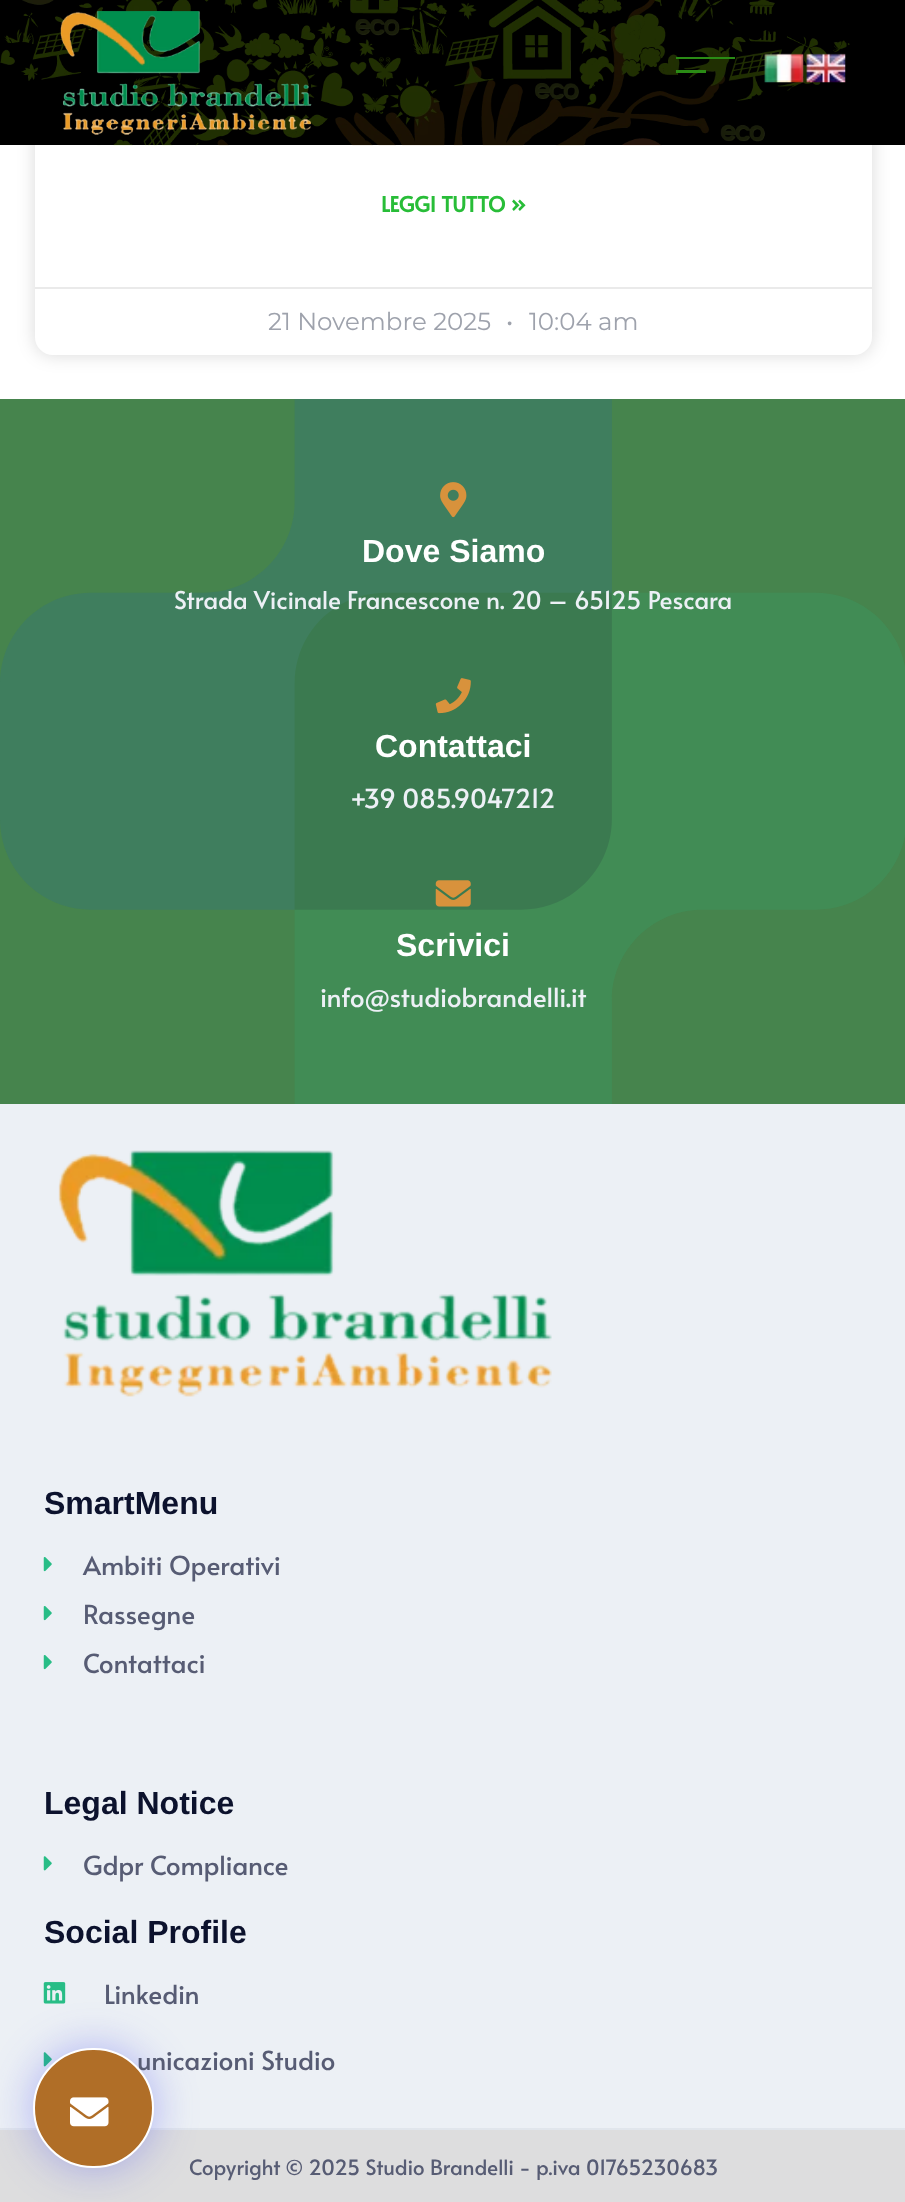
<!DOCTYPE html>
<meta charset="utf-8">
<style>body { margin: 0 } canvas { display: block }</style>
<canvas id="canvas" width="905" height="2202"></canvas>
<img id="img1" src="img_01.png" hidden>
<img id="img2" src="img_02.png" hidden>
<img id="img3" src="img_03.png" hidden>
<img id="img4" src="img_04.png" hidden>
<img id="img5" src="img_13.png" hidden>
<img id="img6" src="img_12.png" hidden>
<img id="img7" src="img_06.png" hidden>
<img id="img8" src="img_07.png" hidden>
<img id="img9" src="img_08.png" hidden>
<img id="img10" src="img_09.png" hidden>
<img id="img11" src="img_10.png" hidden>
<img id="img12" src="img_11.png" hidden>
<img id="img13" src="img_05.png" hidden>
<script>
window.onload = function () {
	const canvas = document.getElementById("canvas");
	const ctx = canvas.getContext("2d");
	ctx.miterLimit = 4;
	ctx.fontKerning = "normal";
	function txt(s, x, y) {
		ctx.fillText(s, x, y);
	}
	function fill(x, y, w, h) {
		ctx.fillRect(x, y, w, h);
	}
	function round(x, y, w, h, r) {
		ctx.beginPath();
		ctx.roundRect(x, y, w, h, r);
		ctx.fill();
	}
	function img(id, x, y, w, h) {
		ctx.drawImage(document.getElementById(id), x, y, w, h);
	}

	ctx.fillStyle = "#FFFFFF";
	fill(0, 0, 905, 2202);
	ctx.fillStyle = "rgba(0, 0, 0, 0.15)";
	ctx.filter = "blur(9px)";
	ctx.beginPath();
	ctx.roundRect(35, -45, 837, 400, 18);
	ctx.fill();
	ctx.filter = "none";
	ctx.fillStyle = "#FFFFFF";
	round(35, -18, 837, 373, 18);
	ctx.fillStyle = "#000000";
	fill(0, 0, 905, 145);
	img("img1", 0, 0, 850, 146);
	img("img2", 60, 11, 252, 124);
	ctx.fillStyle = "#2A8B15";
	fill(676, 57, 59, 2);
	fill(676, 70, 30, 3);
	img("img3", 764, 53, 40, 30);
	img("img4", 806, 53, 40, 30);
	ctx.fillStyle = "#EAEAEA";
	fill(35, 287, 837, 2);
	ctx.fillStyle = "#ECF0F5";
	fill(0, 1104, 905, 1024);
	ctx.fillStyle = "#E1E6EC";
	fill(0, 2128, 905, 2);
	img("img5", 43, 1982, 23, 22);
	img("img6", 43, 2052, 9, 15);
	ctx.fillStyle = "#DDDDDE";
	fill(0, 2130, 905, 72);
	ctx.fillStyle = "rgba(53, 56, 240, 0.35)";
	ctx.filter = "blur(22px)";
	ctx.beginPath();
	ctx.roundRect(33, 2048, 121, 120, 60);
	ctx.fill();
	ctx.filter = "none";
	ctx.fillStyle = "#46844D";
	fill(0, 399, 905, 705);
	img("img7", 0, 399, 905, 705);
	img("img8", 440, 482, 27, 36);
	img("img9", 435, 678, 36, 36);
	img("img10", 435, 880, 36, 27);
	img("img11", 58, 1150, 494, 247);
	img("img12", 43, 1557, 9, 15);
	img("img12", 43, 1606, 9, 15);
	img("img12", 43, 1655, 9, 15);
	img("img6", 43, 1856, 9, 15);
	ctx.font = "bold 21px Alata";
	ctx.fillStyle = "#28BD38";
	txt("LEGGI TUTTO »", 381, 212);
	ctx.font = "24.5px Montserrat";
	ctx.fillStyle = "#9EA2AC";
	txt("21 Novembre 2025", 268, 330);
	txt("•", 506, 330);
	txt("10:04 am", 529, 330);
	ctx.font = "bold 32px Liberation Sans";
	ctx.fillStyle = "#FFFFFF";
	txt("Dove Siamo", 362, 562);
	ctx.font = "24.5px Alata";
	ctx.fillStyle = "#ECF0F5";
	txt("Strada Vicinale Francescone n. 20 – 65125 Pescara", 174, 609);
	ctx.font = "bold 32px Liberation Sans";
	ctx.fillStyle = "#FFFFFF";
	txt("Contattaci", 375, 757);
	ctx.font = "26.25px Alata";
	ctx.fillStyle = "#ECF0F5";
	txt("+39 085.9047212", 350, 808);
	ctx.font = "bold 32px Liberation Sans";
	ctx.fillStyle = "#FFFFFF";
	txt("Scrivici", 396, 956);
	ctx.font = "26.25px Alata";
	ctx.fillStyle = "#ECF0F5";
	txt("info@studiobrandelli.it", 320, 1007);
	ctx.font = "bold 32px Liberation Sans";
	ctx.fillStyle = "#0C122D";
	txt("SmartMenu", 44, 1514);
	ctx.font = "26.25px Alata";
	ctx.fillStyle = "#575C74";
	txt("Ambiti Operativi", 83, 1575);
	txt("Rassegne", 83, 1624);
	txt("Contattaci", 83, 1673);
	ctx.font = "bold 32px Liberation Sans";
	ctx.fillStyle = "#0C122D";
	txt("Legal Notice", 44, 1814);
	ctx.font = "26.25px Alata";
	ctx.fillStyle = "#575C74";
	txt("Gdpr Compliance", 83, 1875);
	ctx.font = "bold 32px Liberation Sans";
	ctx.fillStyle = "#0C122D";
	txt("Social Profile", 44, 1943);
	ctx.font = "26.25px Alata";
	ctx.fillStyle = "#575C74";
	txt("Linkedin", 104, 2004);
	txt("unicazioni Studio", 137, 2070);
	ctx.fillStyle = "#B06E27";
	ctx.beginPath();
	ctx.roundRect(34, 2049, 119, 118, 59);
	ctx.fill();
	ctx.strokeStyle = "#FFFFFF";
	ctx.lineWidth = 2;
	ctx.stroke();
	img("img13", 70, 2097, 39, 30);
	ctx.font = "21px Alata";
	ctx.fillStyle = "#575C74";
	txt("Copyright © 2025 Studio Brandelli - p.iva 01765230683", 189, 2175);
};
</script>
